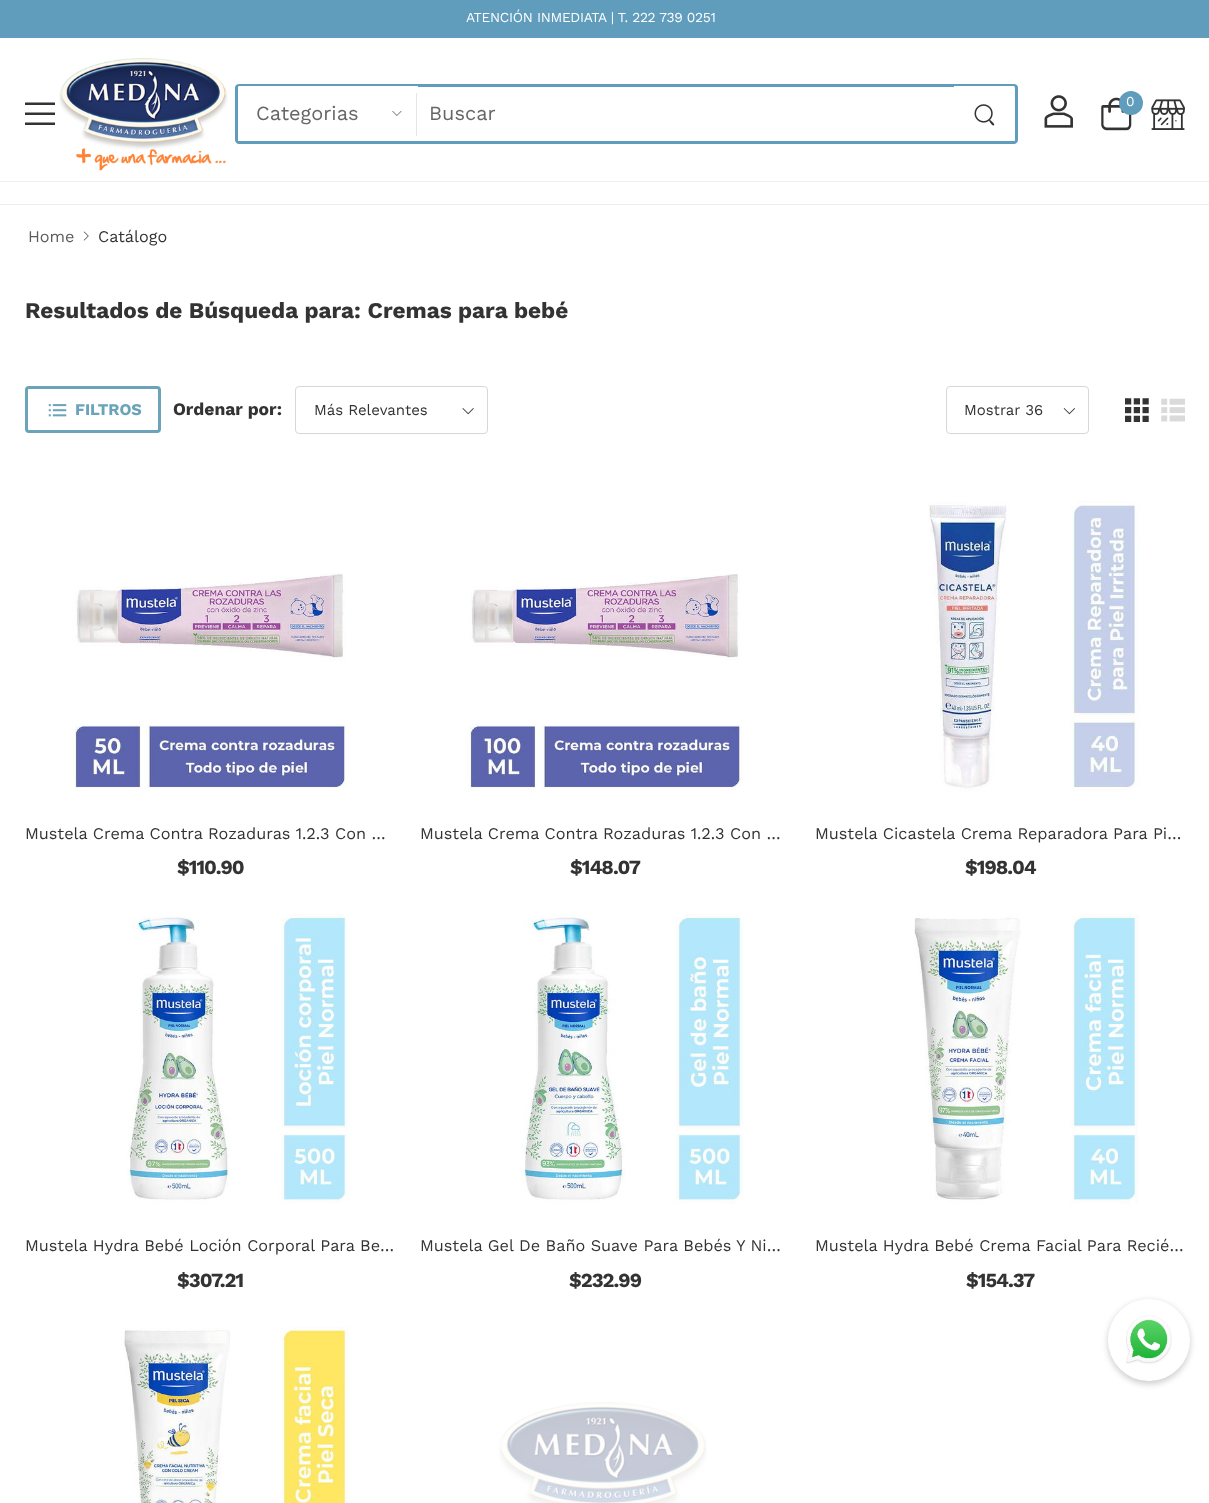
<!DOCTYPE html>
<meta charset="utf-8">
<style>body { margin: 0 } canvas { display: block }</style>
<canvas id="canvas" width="1209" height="1503"></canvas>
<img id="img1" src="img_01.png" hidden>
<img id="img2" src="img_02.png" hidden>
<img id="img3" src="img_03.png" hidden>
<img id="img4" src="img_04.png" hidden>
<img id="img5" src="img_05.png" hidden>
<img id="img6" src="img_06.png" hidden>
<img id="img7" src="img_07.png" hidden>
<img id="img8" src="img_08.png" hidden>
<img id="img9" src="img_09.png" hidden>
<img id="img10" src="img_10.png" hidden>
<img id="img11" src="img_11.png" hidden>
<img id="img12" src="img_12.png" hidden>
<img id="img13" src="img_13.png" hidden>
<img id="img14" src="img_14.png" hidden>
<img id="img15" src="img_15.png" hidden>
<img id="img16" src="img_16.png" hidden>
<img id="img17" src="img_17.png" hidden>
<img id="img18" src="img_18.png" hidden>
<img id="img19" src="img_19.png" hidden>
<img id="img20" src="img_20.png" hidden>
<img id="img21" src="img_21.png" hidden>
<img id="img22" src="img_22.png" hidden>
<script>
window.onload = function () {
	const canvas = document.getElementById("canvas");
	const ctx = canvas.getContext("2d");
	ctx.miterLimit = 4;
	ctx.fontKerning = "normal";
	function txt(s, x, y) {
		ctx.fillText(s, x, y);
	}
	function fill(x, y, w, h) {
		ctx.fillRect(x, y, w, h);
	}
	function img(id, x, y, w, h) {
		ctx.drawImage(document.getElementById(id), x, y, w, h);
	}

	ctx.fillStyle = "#FFFFFF";
	fill(0, 0, 1209, 1503);
	ctx.fillStyle = "#609CBB";
	fill(0, 0, 1209, 38);
	ctx.fillStyle = "#EEEEEE";
	fill(0, 181, 1209, 1);
	img("img1", 1044, 95, 29, 33);
	img("img2", 1101, 97, 31, 34);
	ctx.fillStyle = "#609CBB";
	ctx.beginPath();
	ctx.arc(1131, 103, 12, 0, Math.PI * 2);
	ctx.fill();
	img("img3", 1151, 99, 34, 31);
	img("img4", 25, 102, 30, 23);
	img("img5", 59, 58, 169, 113);
	ctx.beginPath();
	ctx.moveTo(239, 84);
	ctx.lineTo(418, 84);
	ctx.lineTo(418, 144);
	ctx.lineTo(239, 144);
	ctx.bezierCurveTo(237, 144, 235, 142, 235, 140);
	ctx.lineTo(235, 88);
	ctx.bezierCurveTo(235, 85, 237, 84, 239, 84);
	ctx.closePath();
	ctx.moveTo(239, 86);
	ctx.lineTo(418, 86);
	ctx.lineTo(418, 141);
	ctx.lineTo(239, 141);
	ctx.bezierCurveTo(238, 141, 238, 141, 238, 140);
	ctx.lineTo(238, 88);
	ctx.bezierCurveTo(238, 87, 238, 86, 239, 86);
	ctx.closePath();
	ctx.fill("evenodd");
	img("img6", 392, 111, 10, 5);
	ctx.fillStyle = "#E5E5E5";
	fill(416, 93, 1, 43);
	ctx.fillStyle = "#609CBB";
	fill(418, 84, 536, 3);
	fill(418, 141, 536, 3);
	ctx.beginPath();
	ctx.moveTo(954, 84);
	ctx.lineTo(1014, 84);
	ctx.bezierCurveTo(1016, 84, 1018, 85, 1018, 88);
	ctx.lineTo(1018, 140);
	ctx.bezierCurveTo(1018, 142, 1016, 144, 1014, 144);
	ctx.lineTo(954, 144);
	ctx.closePath();
	ctx.moveTo(954, 86);
	ctx.lineTo(1014, 86);
	ctx.bezierCurveTo(1014, 86, 1015, 87, 1015, 88);
	ctx.lineTo(1015, 140);
	ctx.bezierCurveTo(1015, 141, 1014, 141, 1014, 141);
	ctx.lineTo(954, 141);
	ctx.closePath();
	ctx.fill("evenodd");
	img("img7", 974, 104, 21, 22);
	ctx.fillStyle = "#EEEEEE";
	fill(0, 204, 1209, 1);
	img("img8", 83, 231, 6, 10);
	ctx.beginPath();
	ctx.roundRect(26.5, 387.5, 133, 44, 2.5);
	ctx.strokeStyle = "#6BA3B8";
	ctx.lineWidth = 3;
	ctx.stroke();
	img("img9", 48, 404, 19, 13);
	img("img10", 462, 408, 12, 7);
	ctx.beginPath();
	ctx.roundRect(295.5, 386.5, 192, 47, 3.5);
	ctx.strokeStyle = "#D7D7D7";
	ctx.lineWidth = 1;
	ctx.stroke();
	img("img11", 1063, 408, 12, 7);
	ctx.beginPath();
	ctx.roundRect(946.5, 386.5, 142, 47, 3.5);
	ctx.stroke();
	img("img12", 1125, 398, 24, 24);
	img("img13", 1161, 398, 24, 24);
	img("img14", 70, 573, 280, 218);
	img("img15", 465, 574, 280, 217);
	img("img16", 928, 501, 212, 291);
	img("img17", 127, 914, 223, 290);
	img("img18", 521, 914, 224, 290);
	img("img19", 914, 914, 226, 290);
	img("img20", 121, 1326, 229, 177);
	img("img21", 499, 1402, 208, 101);
	ctx.fillStyle = "rgba(0, 0, 0, 0.2)";
	ctx.filter = "blur(3px)";
	ctx.beginPath();
	ctx.roundRect(1108, 1301, 82, 83, 41);
	ctx.fill();
	ctx.filter = "none";
	ctx.fillStyle = "#FFFFFF";
	ctx.beginPath();
	ctx.arc(1149, 1340, 41, 0, Math.PI * 2);
	ctx.fill();
	img("img22", 1126, 1315, 46, 49);
	ctx.letterSpacing = "-0.3px";
	ctx.font = "13.75px Work Sans";
	txt("ATENCIÓN INMEDIATA | T. 222 739 0251", 466, 22);
	ctx.letterSpacing = "0px";
	txt("0", 1126, 106);
	ctx.font = "20px Work Sans";
	ctx.fillStyle = "#666666";
	txt("Categorias", 256, 120);
	txt("Buscar", 429, 120);
	ctx.font = "16.25px Work Sans";
	ctx.fillStyle = "#5C5C5C";
	txt("Home", 28, 242);
	ctx.fillStyle = "#333333";
	txt("Catálogo", 98, 242);
	ctx.font = "bold 22.5px Work Sans";
	txt("Resultados de Búsqueda para: Cremas para bebé", 25, 318);
	ctx.font = "bold 16.25px Work Sans";
	ctx.fillStyle = "#6BA3B8";
	txt("FILTROS", 75, 415);
	ctx.font = "bold 17.5px Work Sans";
	ctx.fillStyle = "#333333";
	txt("Ordenar por:", 173, 415);
	ctx.font = "15px Work Sans";
	txt("Más Relevantes", 314, 415);
	txt("Mostrar 36", 964, 415);
	ctx.font = "16.25px Work Sans";
	txt("Mustela Crema Contra Rozaduras 1.2.3 Con …", 25, 839);
	ctx.letterSpacing = "-1px";
	ctx.font = "bold 20px Work Sans";
	txt("$110.90", 177, 874);
	ctx.letterSpacing = "0px";
	ctx.font = "16.25px Work Sans";
	txt("Mustela Crema Contra Rozaduras 1.2.3 Con …", 420, 839);
	ctx.letterSpacing = "-1px";
	ctx.font = "bold 20px Work Sans";
	txt("$148.07", 570, 874);
	ctx.letterSpacing = "0px";
	ctx.font = "16.25px Work Sans";
	txt("Mustela Cicastela Crema Reparadora Para Pi…", 815, 839);
	ctx.letterSpacing = "-1px";
	ctx.font = "bold 20px Work Sans";
	txt("$198.04", 965, 874);
	ctx.letterSpacing = "0px";
	ctx.font = "16.25px Work Sans";
	txt("Mustela Hydra Bebé Loción Corporal Para Be…", 25, 1251);
	ctx.letterSpacing = "-1px";
	ctx.font = "bold 20px Work Sans";
	txt("$307.21", 177, 1287);
	ctx.letterSpacing = "0px";
	ctx.font = "16.25px Work Sans";
	txt("Mustela Gel De Baño Suave Para Bebés Y Ni…", 420, 1251);
	ctx.letterSpacing = "-1px";
	ctx.font = "bold 20px Work Sans";
	txt("$232.99", 569, 1287);
	ctx.letterSpacing = "0px";
	ctx.font = "16.25px Work Sans";
	txt("Mustela Hydra Bebé Crema Facial Para Recié…", 815, 1251);
	ctx.letterSpacing = "-1px";
	ctx.font = "bold 20px Work Sans";
	txt("$154.37", 966, 1287);
};
</script>
